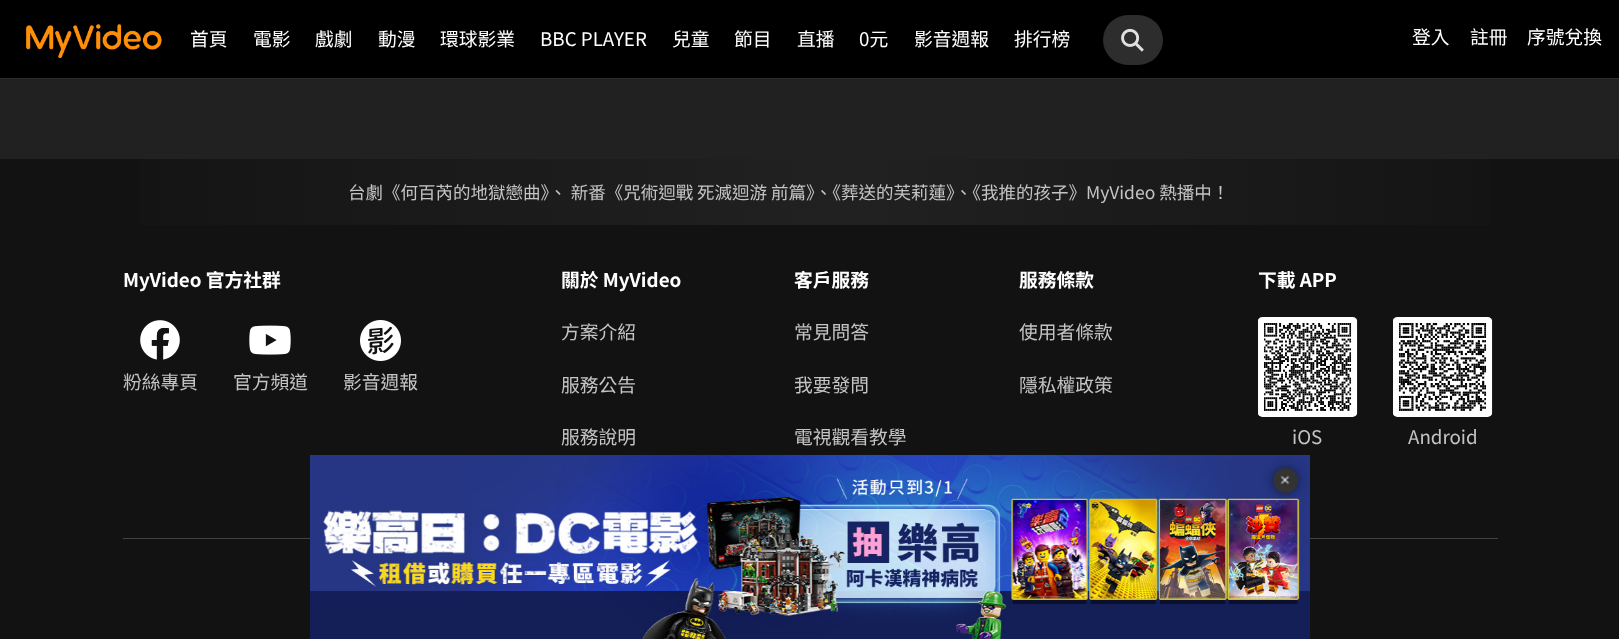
<!DOCTYPE html>
<meta charset="utf-8">
<style>body { margin: 0 } canvas { display: block }</style>
<canvas id="canvas" width="1619" height="639"></canvas>
<img id="img1" src="img_01.png" hidden>
<img id="img2" src="img_02.png" hidden>
<img id="img3" src="img_03.png" hidden>
<img id="img4" src="img_04.png" hidden>
<img id="img5" src="img_05.png" hidden>
<img id="img6" src="img_06.png" hidden>
<img id="img7" src="img_07.png" hidden>
<img id="img8" src="img_09.png" hidden>
<img id="img9" src="img_08.png" hidden>
<script>
window.onload = function () {
	const canvas = document.getElementById("canvas");
	const ctx = canvas.getContext("2d");
	ctx.miterLimit = 4;
	ctx.fontKerning = "normal";
	function txt(s, x, y) {
		ctx.fillText(s, x, y);
	}
	function fill(x, y, w, h) {
		ctx.fillRect(x, y, w, h);
	}
	function round(x, y, w, h, r) {
		ctx.beginPath();
		ctx.roundRect(x, y, w, h, r);
		ctx.fill();
	}
	function img(id, x, y, w, h) {
		ctx.drawImage(document.getElementById(id), x, y, w, h);
	}
	let gradient;

	ctx.fillStyle = "#121212";
	fill(0, 0, 1619, 639);
	ctx.fillStyle = "#000000";
	fill(0, 0, 1619, 78);
	ctx.fillStyle = "#2D2D2D";
	fill(0, 78, 1619, 1);
	img("img1", 26, 24, 136, 34);
	round(1103, 15, 60, 50, 25);
	img("img2", 1121, 28, 23, 24);
	gradient = ctx.createLinearGradient(810, -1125, 810, 159);
	gradient.addColorStop(0.43, "#272727");
	gradient.addColorStop(0.46, "#262626");
	gradient.addColorStop(0.56, "#232323");
	gradient.addColorStop(0.66, "#222222");
	gradient.addColorStop(0.73, "#212121");
	ctx.fillStyle = gradient;
	fill(0, 79, 1619, 80);
	gradient = ctx.createLinearGradient(0, 192, 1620, 192);
	gradient.addColorStop(0, "#121212");
	gradient.addColorStop(0.52, "#212121");
	gradient.addColorStop(1, "#121212");
	ctx.fillStyle = gradient;
	fill(140, 159, 1350, 66);
	img("img3", 140, 320, 40, 40);
	img("img4", 249, 325, 42, 30);
	img("img5", 360, 320, 41, 41);
	img("img6", 1258, 317, 100, 100);
	img("img7", 1393, 317, 100, 100);
	ctx.fillStyle = "#424242";
	fill(123, 538, 1375, 1);
	img("img8", 310, 455, 1000, 184);
	ctx.fillStyle = "rgba(0, 0, 0, 0.5)";
	ctx.filter = "blur(6px)";
	ctx.beginPath();
	ctx.roundRect(1273, 468, 25, 25, 12.5);
	ctx.fill();
	ctx.filter = "none";
	ctx.fillStyle = "#333333";
	ctx.beginPath();
	ctx.arc(1285.5, 480.5, 12.5, 0, Math.PI * 2);
	ctx.fill();
	img("img9", 1280, 475, 10, 10);
	ctx.font = "18.75px Noto Sans TC";
	ctx.fillStyle = "#FFFFFF";
	txt("首頁", 190, 46);
	txt("電影", 253, 46);
	txt("戲劇", 315, 46);
	txt("動漫", 378, 46);
	txt("環球影業", 440, 46);
	txt("BBC PLAYER", 540, 46);
	txt("兒童", 672, 46);
	txt("節目", 734, 46);
	txt("直播", 797, 46);
	txt("0元", 859, 46);
	txt("影音週報", 914, 46);
	txt("排行榜", 1014, 46);
	txt("登入", 1412, 44);
	txt("註冊", 1470, 44);
	txt("序號兌換", 1527, 44);
	ctx.font = "17.5px Noto Sans TC";
	ctx.fillStyle = "#C4C4C4";
	txt("台劇《何百芮的地獄戀曲》、 新番《咒術迴戰 死滅迴游 前篇》、《葬送的芙莉蓮》、《我推的孩子》MyVideo 熱播中！", 348, 199);
	ctx.font = "bold 18.75px Noto Sans TC";
	ctx.fillStyle = "#FFFFFF";
	txt("MyVideo 官方社群", 123, 287);
	ctx.font = "18.75px Noto Sans TC";
	ctx.fillStyle = "#C4C4C4";
	txt("粉絲專頁", 123, 389);
	txt("官方頻道", 233, 389);
	txt("影音週報", 343, 389);
	ctx.font = "bold 18.75px Noto Sans TC";
	ctx.fillStyle = "#FFFFFF";
	txt("關於 MyVideo", 561, 287);
	ctx.font = "18.75px Noto Sans TC";
	ctx.fillStyle = "#C4C4C4";
	txt("方案介紹", 561, 339);
	txt("服務公告", 561, 392);
	txt("服務說明", 561, 444);
	ctx.font = "bold 18.75px Noto Sans TC";
	ctx.fillStyle = "#FFFFFF";
	txt("客戶服務", 794, 287);
	ctx.font = "18.75px Noto Sans TC";
	ctx.fillStyle = "#C4C4C4";
	txt("常見問答", 794, 339);
	txt("我要發問", 794, 392);
	txt("電視觀看教學", 794, 444);
	ctx.font = "bold 18.75px Noto Sans TC";
	ctx.fillStyle = "#FFFFFF";
	txt("服務條款", 1019, 287);
	ctx.font = "18.75px Noto Sans TC";
	ctx.fillStyle = "#C4C4C4";
	txt("使用者條款", 1019, 339);
	txt("隱私權政策", 1019, 392);
	ctx.font = "bold 18.75px Noto Sans TC";
	ctx.fillStyle = "#FFFFFF";
	txt("下載 APP", 1258, 287);
	ctx.font = "18.75px Noto Sans TC";
	ctx.fillStyle = "#C4C4C4";
	txt("iOS", 1292, 444);
	txt("Android", 1408, 444);
};
</script>
